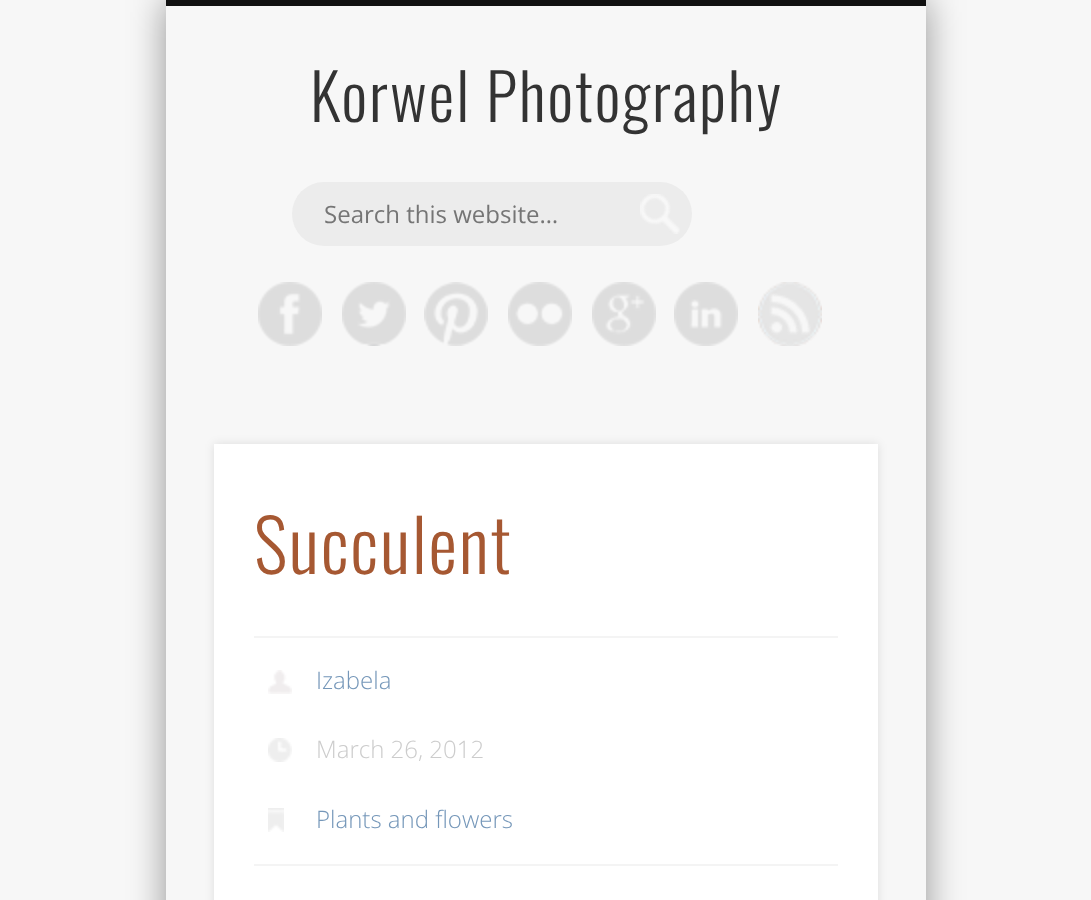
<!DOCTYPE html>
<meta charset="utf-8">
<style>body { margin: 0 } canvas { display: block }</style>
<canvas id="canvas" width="1091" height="900"></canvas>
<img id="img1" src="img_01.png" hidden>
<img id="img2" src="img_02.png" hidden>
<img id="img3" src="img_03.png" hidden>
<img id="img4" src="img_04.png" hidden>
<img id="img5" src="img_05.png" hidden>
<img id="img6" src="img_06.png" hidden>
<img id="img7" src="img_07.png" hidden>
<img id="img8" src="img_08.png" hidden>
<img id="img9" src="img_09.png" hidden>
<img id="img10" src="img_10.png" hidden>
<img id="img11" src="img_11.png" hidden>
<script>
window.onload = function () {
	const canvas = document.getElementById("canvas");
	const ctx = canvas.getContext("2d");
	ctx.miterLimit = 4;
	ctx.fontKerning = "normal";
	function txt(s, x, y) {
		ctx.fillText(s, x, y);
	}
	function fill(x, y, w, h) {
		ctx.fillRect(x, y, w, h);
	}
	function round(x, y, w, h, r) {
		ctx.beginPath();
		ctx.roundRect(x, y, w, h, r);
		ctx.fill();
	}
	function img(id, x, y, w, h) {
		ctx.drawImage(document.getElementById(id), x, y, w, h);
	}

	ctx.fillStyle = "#F7F7F7";
	fill(0, 0, 1091, 900);
	ctx.save();
	ctx.beginPath();
	ctx.moveTo(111, 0);
	ctx.lineTo(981, 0);
	ctx.lineTo(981, 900);
	ctx.lineTo(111, 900);
	ctx.closePath();
	ctx.moveTo(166, 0);
	ctx.lineTo(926, 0);
	ctx.lineTo(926, 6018);
	ctx.lineTo(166, 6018);
	ctx.closePath();
	ctx.clip("evenodd");
	ctx.fillStyle = "rgba(0, 0, 0, 0.4)";
	ctx.filter = "blur(18px)";
	ctx.beginPath();
	ctx.rect(166, 0, 760, 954);
	ctx.fill();
	ctx.filter = "none";
	ctx.restore();
	ctx.fillStyle = "#111111";
	fill(166, 0, 760, 6);
	ctx.fillStyle = "#ECECEC";
	round(292, 182, 400, 64, 32);
	img("img1", 640, 194, 40, 40);
	img("img2", 258, 282, 64, 64);
	img("img3", 342, 282, 64, 64);
	img("img4", 424, 282, 64, 64);
	img("img5", 508, 282, 64, 64);
	img("img6", 592, 282, 64, 64);
	img("img7", 674, 282, 64, 64);
	img("img8", 758, 282, 64, 64);
	ctx.fillStyle = "rgba(0, 0, 0, 0.1)";
	ctx.filter = "blur(5px)";
	ctx.beginPath();
	ctx.rect(214, 444, 664, 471);
	ctx.fill();
	ctx.filter = "none";
	ctx.fillStyle = "#FFFFFF";
	fill(214, 444, 664, 456);
	ctx.fillStyle = "#F4F4F4";
	fill(254, 636, 584, 2);
	fill(254, 864, 584, 2);
	img("img9", 268, 670, 24, 24);
	img("img10", 268, 738, 24, 24);
	img("img11", 268, 808, 16, 24);
	ctx.letterSpacing = "2px";
	ctx.font = "300 64px Oswald";
	ctx.fillStyle = "#333333";
	txt("Korwel Photography", 310, 122);
	ctx.letterSpacing = "0px";
	ctx.font = "24px Open Sans";
	ctx.fillStyle = "#757575";
	txt("Search this website…", 324, 223);
	ctx.letterSpacing = "2px";
	ctx.font = "300 72px Oswald";
	ctx.fillStyle = "#A65832";
	txt("Succulent", 254, 574);
	ctx.letterSpacing = "0px";
	ctx.font = "300 24px Open Sans";
	ctx.fillStyle = "#7597B9";
	txt("Izabela", 316, 689);
	ctx.fillStyle = "#CCCCCC";
	txt("March 26, 2012", 316, 758);
	ctx.fillStyle = "#7597B9";
	txt("Plants and flowers", 316, 828);
};
</script>
